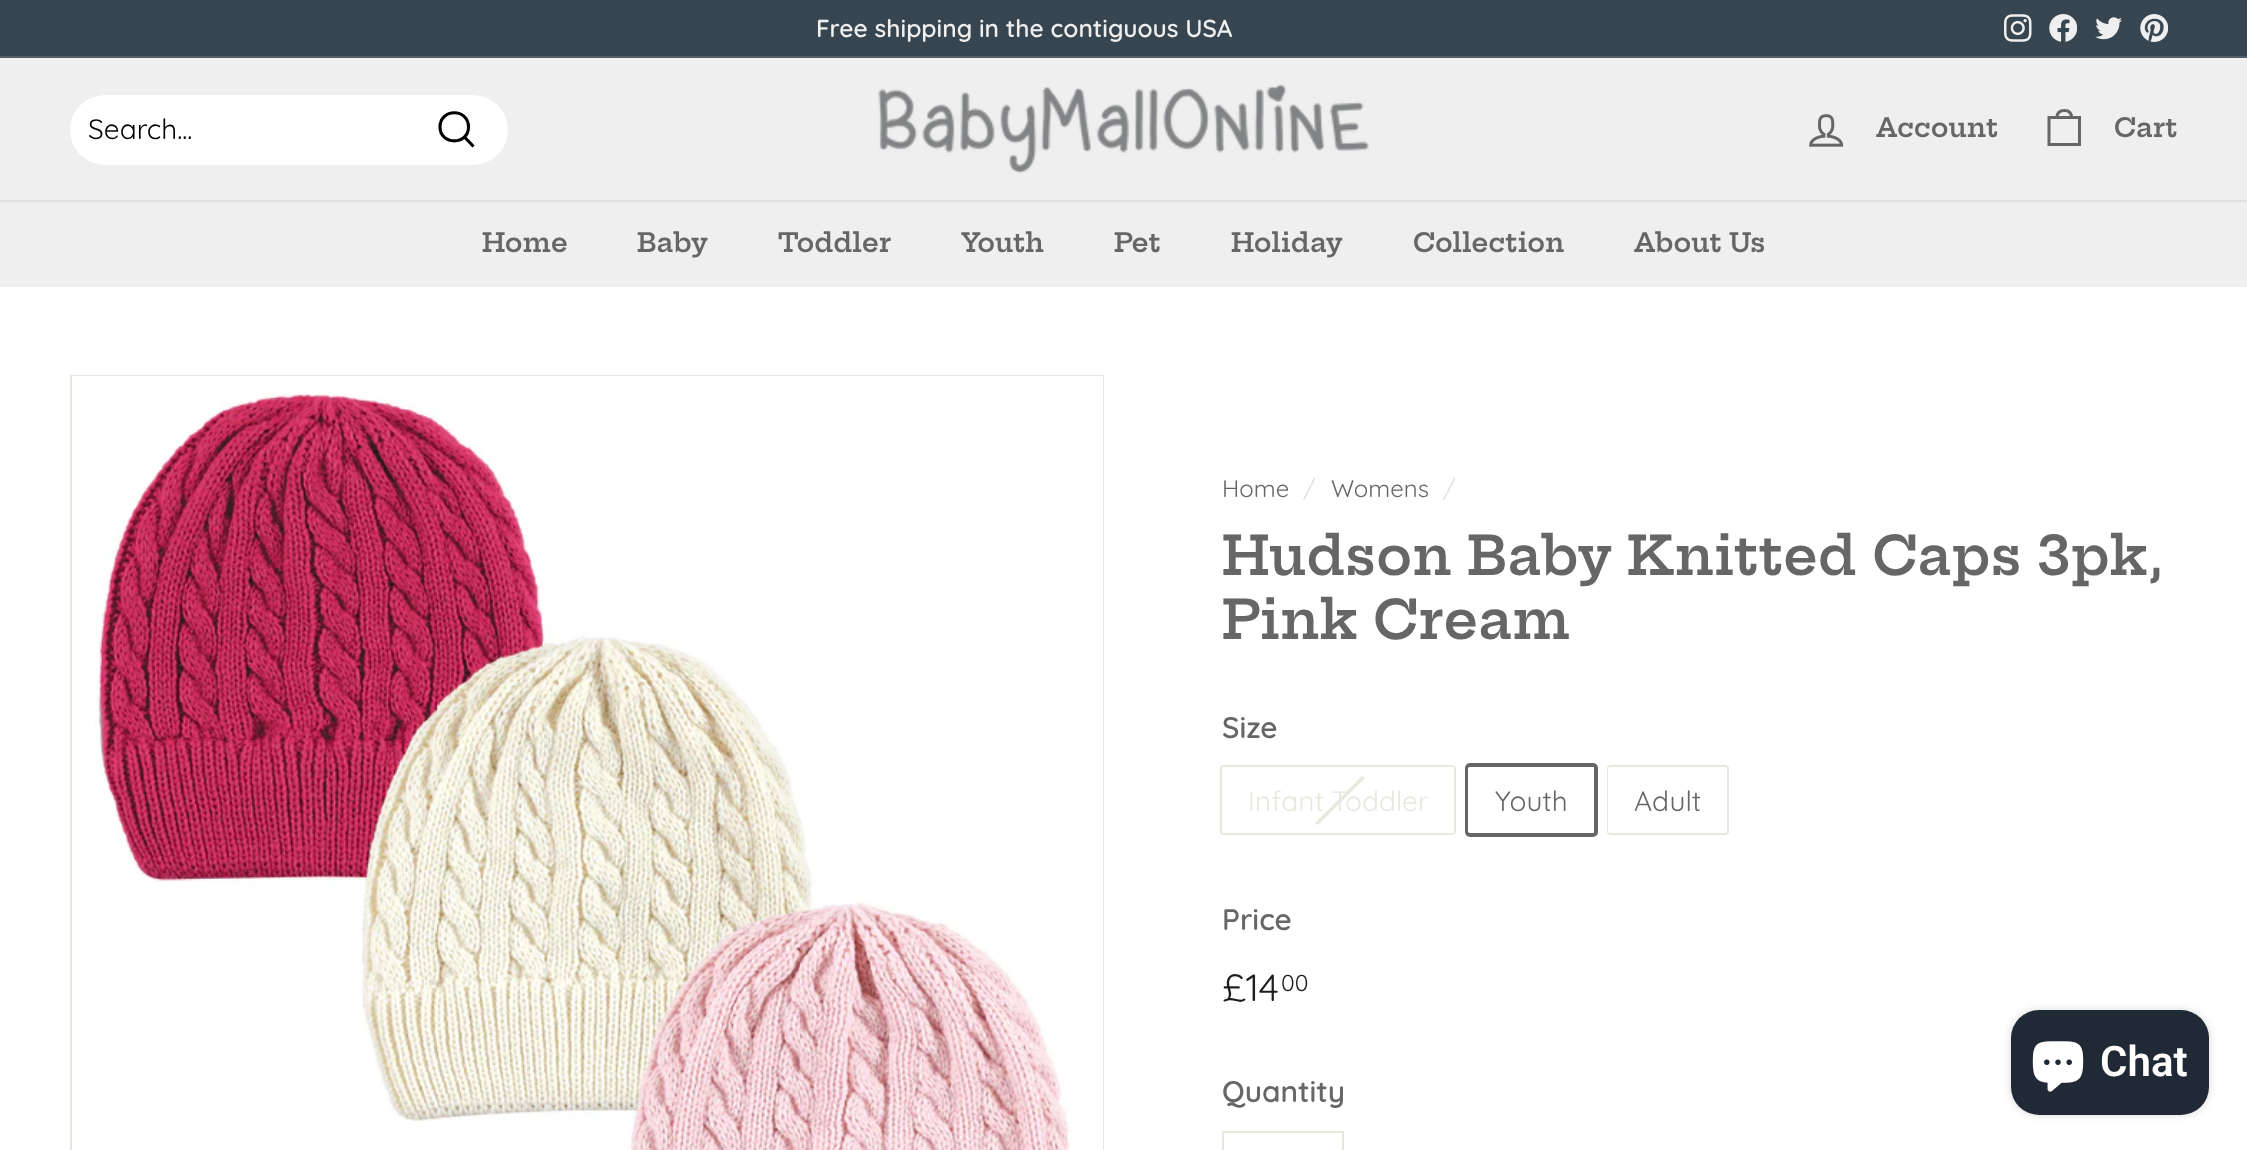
<!DOCTYPE html>
<meta charset="utf-8">
<style>body { margin: 0 } canvas { display: block }</style>
<canvas id="canvas" width="2247" height="1150"></canvas>
<img id="img1" src="img_01.png" hidden>
<img id="img2" src="img_02.png" hidden>
<img id="img3" src="img_03.png" hidden>
<img id="img4" src="img_04.png" hidden>
<img id="img5" src="img_05.png" hidden>
<img id="img6" src="img_06.png" hidden>
<img id="img7" src="img_07.png" hidden>
<img id="img8" src="img_08.png" hidden>
<script>
window.onload = function () {
	const canvas = document.getElementById("canvas");
	const ctx = canvas.getContext("2d");
	ctx.miterLimit = 4;
	ctx.fontKerning = "normal";
	function txt(s, x, y) {
		ctx.fillText(s, x, y);
	}
	function fill(x, y, w, h) {
		ctx.fillRect(x, y, w, h);
	}
	function round(x, y, w, h, r) {
		ctx.beginPath();
		ctx.roundRect(x, y, w, h, r);
		ctx.fill();
	}
	function img(id, x, y, w, h) {
		ctx.drawImage(document.getElementById(id), x, y, w, h);
	}

	ctx.fillStyle = "#FFFFFF";
	fill(0, 0, 2247, 1150);
	ctx.fillStyle = "#36454F";
	fill(0, 0, 2247, 56);
	img("img1", 2004, 14, 28, 28);
	img("img2", 2049, 14, 28, 28);
	img("img3", 2095, 17, 27, 23);
	img("img4", 2140, 14, 28, 28);
	ctx.fillStyle = "#525F67";
	fill(0, 56, 2247, 2);
	ctx.fillStyle = "#EFEFEF";
	fill(0, 58, 2247, 142);
	ctx.fillStyle = "#FFFFFF";
	round(70, 95, 438, 70, 35);
	ctx.beginPath();
	ctx.moveTo(468.5, 127);
	ctx.bezierCurveTo(468.5, 145.5, 440, 145.5, 440, 127);
	ctx.bezierCurveTo(440, 108, 468.5, 108, 468.5, 127);
	ctx.closePath();
	ctx.moveTo(473.5, 146.5);
	ctx.lineTo(464.5, 137);
	ctx.strokeStyle = "#000000";
	ctx.lineWidth = 3.1;
	ctx.stroke();
	img("img5", 878, 84, 491, 90);
	img("img6", 1809, 114, 35, 33);
	ctx.beginPath();
	ctx.moveTo(2057, 117.5);
	ctx.bezierCurveTo(2057, 112, 2060.5, 110.5, 2064.5, 110.5);
	ctx.bezierCurveTo(2068.5, 110.5, 2071.5, 112, 2071.5, 117.5);
	ctx.moveTo(2049, 117.5);
	ctx.lineTo(2079.5, 117.5);
	ctx.lineTo(2079.5, 144.5);
	ctx.lineTo(2049, 144.5);
	ctx.closePath();
	ctx.strokeStyle = "#666666";
	ctx.lineWidth = 3;
	ctx.stroke();
	ctx.fillStyle = "#E1E1E1";
	fill(0, 200, 2247, 2);
	ctx.fillStyle = "#EFEFEF";
	fill(0, 202, 2247, 85);
	ctx.strokeStyle = "#E8E8E1";
	ctx.lineWidth = 2;
	ctx.strokeRect(71, 376, 1032, 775);
	ctx.fillStyle = "#FFFFFF";
	fill(72, 376, 1031, 774);
	img("img7", 94, 388, 976, 762);
	ctx.beginPath();
	ctx.roundRect(1221, 766, 234, 68, 3);
	ctx.stroke();
	round(1222, 767, 232, 66, 2);
	ctx.fillStyle = "#E8E8E1";
	ctx.beginPath();
	ctx.moveTo(1362, 776);
	ctx.lineTo(1365, 778);
	ctx.lineTo(1318, 825);
	ctx.lineTo(1315, 823);
	ctx.closePath();
	ctx.fill();
	ctx.beginPath();
	ctx.roundRect(1467, 765, 129, 70, 3);
	ctx.strokeStyle = "#666666";
	ctx.lineWidth = 4;
	ctx.stroke();
	ctx.fillStyle = "#FFFFFF";
	round(1468, 767, 126, 66, 2);
	ctx.beginPath();
	ctx.roundRect(1608, 766, 120, 68, 3);
	ctx.strokeStyle = "#E8E8E1";
	ctx.lineWidth = 2;
	ctx.stroke();
	round(1608, 767, 119, 66, 2);
	ctx.strokeRect(1223, 1132, 120, 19);
	ctx.fillStyle = "rgba(0, 0, 0, 0.15)";
	ctx.filter = "blur(4.5px)";
	ctx.beginPath();
	ctx.roundRect(2011, 1010, 198, 105, 28);
	ctx.fill();
	ctx.filter = "none";
	ctx.fillStyle = "#202A36";
	round(2011, 1010, 198, 105, 28);
	img("img8", 2032, 1041, 52, 51);
	ctx.font = "600 24.5px Quicksand";
	ctx.fillStyle = "#EFEFEF";
	txt("Free shipping in the contiguous USA", 816, 37);
	ctx.font = "28px Quicksand";
	ctx.fillStyle = "#000000";
	txt("Search...", 88, 139);
	ctx.font = "600 26.25px Hepta Slab";
	ctx.fillStyle = "#666666";
	txt("Account", 1876, 137);
	txt("Cart", 2114, 137);
	txt("Home", 482, 252);
	txt("Baby", 637, 252);
	txt("Toddler", 778, 252);
	txt("Youth", 961, 252);
	txt("Pet", 1114, 252);
	txt("Holiday", 1231, 252);
	txt("Collection", 1413, 252);
	txt("About Us", 1634, 252);
	ctx.font = "24px Quicksand";
	txt("Home", 1222, 497);
	ctx.fillStyle = "#E0E0E0";
	txt("/", 1303, 497);
	ctx.fillStyle = "#666666";
	txt("Womens", 1331, 497);
	ctx.fillStyle = "#E0E0E0";
	txt("/", 1443, 497);
	ctx.font = "600 53.5px Hepta Slab";
	ctx.fillStyle = "#666666";
	txt("Hudson Baby Knitted Caps 3pk,", 1222, 575);
	txt("Pink Cream", 1222, 639);
	ctx.font = "600 29.75px Quicksand";
	txt("Size", 1222, 738);
	ctx.font = "28px Quicksand";
	ctx.fillStyle = "#E8E8E1";
	txt("Infant Toddler", 1248, 811);
	ctx.fillStyle = "#666666";
	txt("Youth", 1495, 811);
	txt("Adult", 1634, 811);
	ctx.font = "600 29.75px Quicksand";
	txt("Price", 1222, 930);
	ctx.font = "38px Quicksand";
	ctx.fillStyle = "#1C1D1D";
	txt("£14", 1222, 1001);
	ctx.font = "23px Quicksand";
	txt("00", 1281, 991);
	ctx.font = "600 29.75px Quicksand";
	ctx.fillStyle = "#666666";
	txt("Quantity", 1222, 1102);
	ctx.font = "600 42px Roboto";
	ctx.fillStyle = "#FFFFFF";
	txt("Chat", 2100, 1076);
};
</script>
